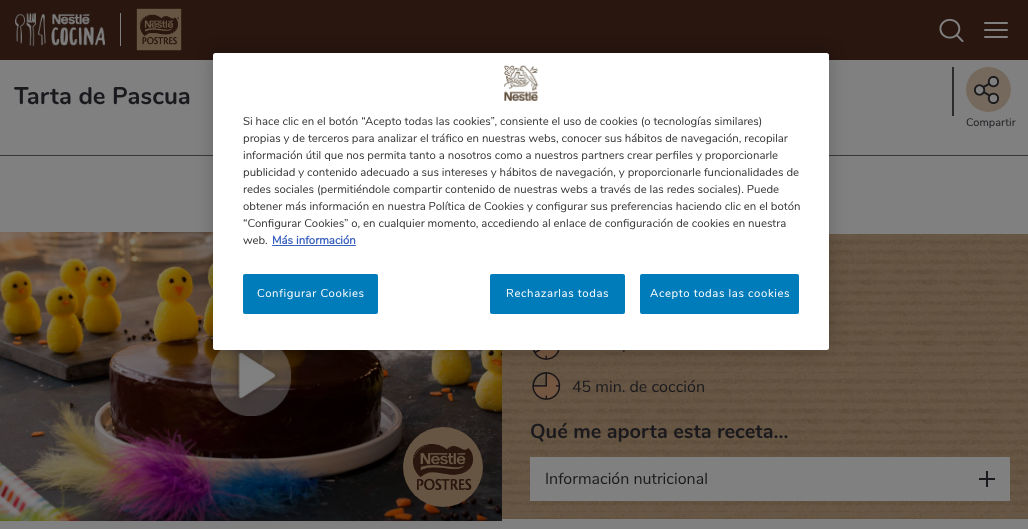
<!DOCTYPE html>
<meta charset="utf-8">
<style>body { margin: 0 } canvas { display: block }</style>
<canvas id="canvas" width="1028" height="529"></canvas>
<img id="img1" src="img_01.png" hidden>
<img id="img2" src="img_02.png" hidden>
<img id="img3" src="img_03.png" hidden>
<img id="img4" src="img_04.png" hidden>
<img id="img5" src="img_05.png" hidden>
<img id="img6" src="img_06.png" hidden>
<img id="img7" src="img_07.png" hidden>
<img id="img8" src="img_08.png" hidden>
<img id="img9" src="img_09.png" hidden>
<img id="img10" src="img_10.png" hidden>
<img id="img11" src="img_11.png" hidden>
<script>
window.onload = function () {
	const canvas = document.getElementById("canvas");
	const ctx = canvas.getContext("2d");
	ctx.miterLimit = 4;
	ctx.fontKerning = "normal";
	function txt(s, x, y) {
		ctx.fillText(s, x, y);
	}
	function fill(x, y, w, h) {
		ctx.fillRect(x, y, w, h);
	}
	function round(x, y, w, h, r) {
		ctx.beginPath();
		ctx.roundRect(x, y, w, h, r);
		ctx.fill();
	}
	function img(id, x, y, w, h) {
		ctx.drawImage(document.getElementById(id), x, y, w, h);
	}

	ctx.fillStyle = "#808080";
	fill(0, 0, 1028, 529);
	ctx.fillStyle = "#28160F";
	fill(0, 0, 1028, 60);
	img("img1", 15, 13, 90, 33);
	ctx.fillStyle = "#808080";
	fill(120, 13, 1, 33);
	img("img2", 136, 8, 46, 43);
	img("img3", 939, 19, 25, 23);
	round(984, 22, 24, 2, 1);
	round(984, 29, 24, 2, 1);
	round(984, 36, 24, 2, 1);
	ctx.fillStyle = "#373738";
	fill(0, 155, 1028, 1);
	ctx.fillStyle = "#74695C";
	ctx.beginPath();
	ctx.arc(988.5, 89.5, 22.5, 0, Math.PI * 2);
	ctx.fill();
	ctx.fillStyle = "#2B2A2C";
	fill(952, 67, 2, 49);
	img("img4", 974, 76, 25, 28);
	img("img5", 0, 232, 502, 289);
	img("img6", 211, 350, 80, 66);
	ctx.fillStyle = "#665543";
	ctx.beginPath();
	ctx.arc(443, 467, 40, 0, Math.PI * 2);
	ctx.fill();
	img("img7", 413, 444, 60, 46);
	ctx.fillStyle = "#404040";
	ctx.filter = "blur(2.5px)";
	ctx.beginPath();
	ctx.roundRect(958, 455, 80, 60, 2);
	ctx.fill();
	ctx.filter = "none";
	img("img8", 502, 234, 526, 285);
	img("img9", 532, 350, 28, 10);
	img("img10", 532, 372, 29, 28);
	ctx.fillStyle = "#808080";
	fill(530, 457, 480, 44);
	ctx.fillStyle = "#1A191D";
	fill(979, 478, 16, 2);
	fill(986, 471, 2, 16);
	ctx.fillStyle = "rgba(0, 0, 0, 0.2)";
	ctx.filter = "blur(9px)";
	ctx.beginPath();
	ctx.roundRect(213, 53, 616, 297, 2.5);
	ctx.fill();
	ctx.filter = "none";
	ctx.fillStyle = "#FFFFFF";
	round(213, 53, 616, 297, 2.5);
	img("img11", 504, 65, 35, 36);
	ctx.fillStyle = "#3860BE";
	fill(272, 245, 84, 1);
	ctx.fillStyle = "#007CBA";
	round(243, 274, 135, 40, 2);
	round(490, 274, 135, 40, 2);
	round(640, 274, 159, 40, 2);
	ctx.font = "bold 24px Nunito";
	ctx.fillStyle = "#1A191D";
	txt("Tarta de Pascua", 14, 104);
	ctx.font = "11px Nunito";
	txt("Compartir", 966, 126);
	ctx.font = "16px Nunito";
	txt(".", 622, 352);
	txt("45 min. de cocción", 572, 392);
	ctx.font = "bold 20px Nunito";
	txt("Qué me aporta esta receta...", 530, 438);
	ctx.font = "16px Nunito";
	txt("Información nutricional", 545, 484);
	ctx.font = "11.4px Nunito";
	ctx.fillStyle = "#333333";
	txt("Si hace clic en el botón “Acepto todas las cookies”, consiente el uso de cookies (o tecnologías similares)", 243, 125);
	txt("propias y de terceros para analizar el tráfico en nuestras webs, conocer sus hábitos de navegación, recopilar", 243, 142);
	txt("información útil que nos permita tanto a nosotros como a nuestros partners crear perfiles y proporcionarle", 243, 159);
	txt("publicidad y contenido adecuado a sus intereses y hábitos de navegación, y proporcionarle funcionalidades de", 243, 176);
	txt("redes sociales (permitiéndole compartir contenido de nuestras webs a través de las redes sociales). Puede", 243, 193);
	txt("obtener más información en nuestra Política de Cookies y configurar sus preferencias haciendo clic en el botón", 243, 210);
	txt("“Configurar Cookies” o, en cualquier momento, accediendo al enlace de configuración de cookies en nuestra", 243, 227);
	txt("web.", 243, 244);
	ctx.font = "bold 11.4px 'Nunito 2'";
	ctx.fillStyle = "#3860BE";
	txt("Más información", 272, 244);
	ctx.letterSpacing = "0.6px";
	ctx.font = "11.4px Nunito";
	ctx.fillStyle = "#FFFFFF";
	txt("Configurar Cookies", 257, 297);
	txt("Rechazarlas todas", 506, 297);
	txt("Acepto todas las cookies", 650, 297);
};
</script>
